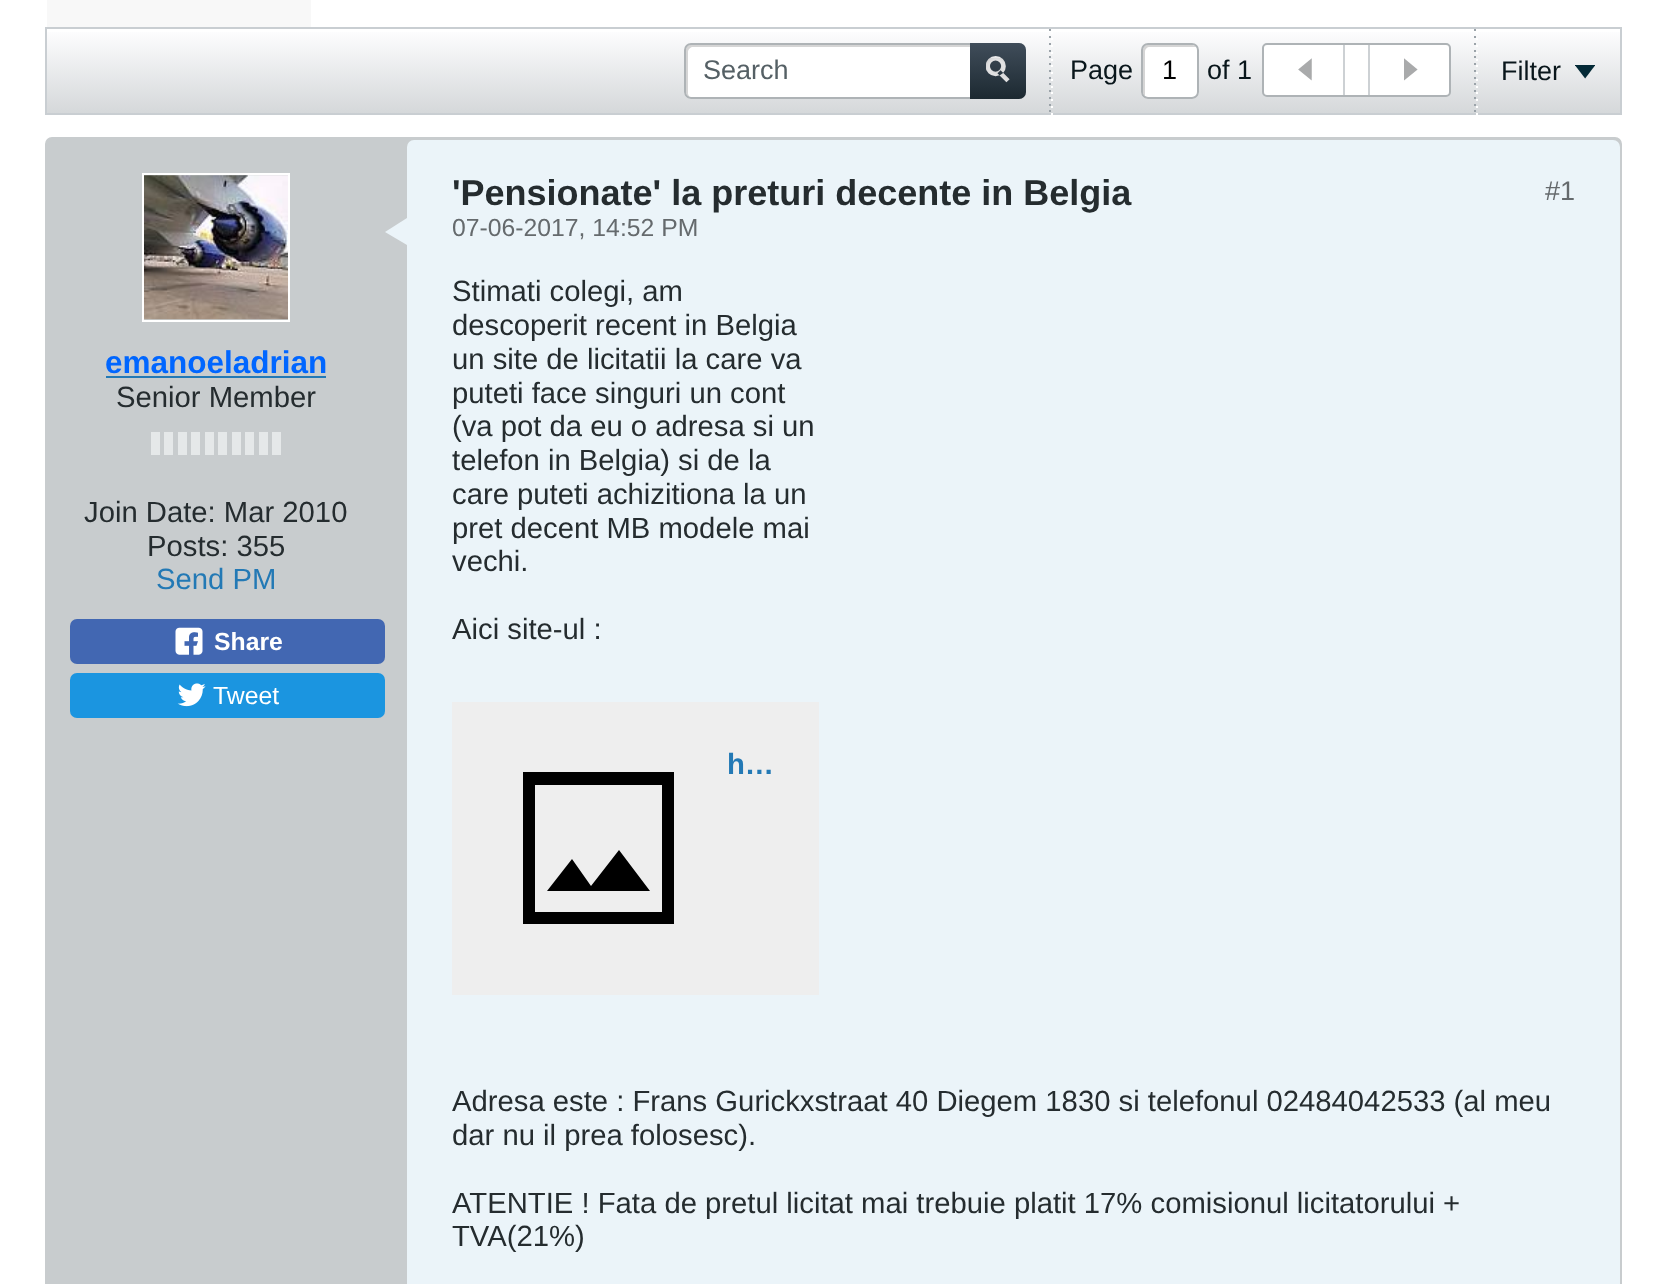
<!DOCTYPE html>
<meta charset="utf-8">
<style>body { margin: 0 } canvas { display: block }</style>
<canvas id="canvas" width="1666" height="1284"></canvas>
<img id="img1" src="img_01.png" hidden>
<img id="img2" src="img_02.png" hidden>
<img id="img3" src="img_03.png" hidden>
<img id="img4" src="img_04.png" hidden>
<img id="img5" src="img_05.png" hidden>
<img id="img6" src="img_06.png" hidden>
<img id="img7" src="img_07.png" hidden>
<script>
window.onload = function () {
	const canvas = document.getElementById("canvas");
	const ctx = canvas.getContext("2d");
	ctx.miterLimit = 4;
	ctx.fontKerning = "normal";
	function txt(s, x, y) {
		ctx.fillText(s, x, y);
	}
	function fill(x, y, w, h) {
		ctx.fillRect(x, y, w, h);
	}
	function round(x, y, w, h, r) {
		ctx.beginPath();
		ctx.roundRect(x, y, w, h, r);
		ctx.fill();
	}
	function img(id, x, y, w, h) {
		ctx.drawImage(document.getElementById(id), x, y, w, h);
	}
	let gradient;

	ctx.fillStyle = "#FFFFFF";
	fill(0, 0, 1666, 1284);
	ctx.fillStyle = "#F8F8F8";
	fill(47, 0, 264, 27);
	gradient = ctx.createLinearGradient(834, 29, 834, 113);
	gradient.addColorStop(0, "#FEFEFF");
	gradient.addColorStop(1, "#D5D8DA");
	ctx.fillStyle = gradient;
	fill(47, 32, 1573, 81);
	ctx.strokeStyle = "#C9CED2";
	ctx.lineWidth = 2;
	ctx.strokeRect(46, 28, 1575, 86);
	ctx.fillStyle = "#FFFFFF";
	round(684, 43, 342, 56, 7);
	ctx.fillStyle = "#D5D5D5";
	ctx.beginPath();
	ctx.moveTo(693, 47);
	ctx.lineTo(1023, 47);
	ctx.bezierCurveTo(1022, 46, 1021, 45, 1019, 45);
	ctx.lineTo(691, 45);
	ctx.bezierCurveTo(688, 45, 686, 47, 686, 50);
	ctx.lineTo(686, 92);
	ctx.bezierCurveTo(686, 94, 687, 96, 689, 96);
	ctx.lineTo(688, 94);
	ctx.lineTo(688, 52);
	ctx.bezierCurveTo(688, 49, 691, 47, 693, 47);
	ctx.closePath();
	ctx.fill();
	ctx.beginPath();
	ctx.roundRect(685, 44, 340, 54, 6);
	ctx.strokeStyle = "#AEB3B6";
	ctx.stroke();
	gradient = ctx.createLinearGradient(998, 43, 998, 99);
	gradient.addColorStop(0, "#404D5A");
	gradient.addColorStop(1, "#1C2931");
	ctx.fillStyle = gradient;
	ctx.beginPath();
	ctx.roundRect(970, 43, 56, 56, [0, 7, 7, 0]);
	ctx.fill();
	img("img1", 986, 56, 24, 27);
	ctx.fillStyle = "#9BA3A9";
	fill(1049, 29, 2, 2);
	fill(1049, 36, 2, 2);
	fill(1049, 43, 2, 2);
	fill(1049, 50, 2, 2);
	fill(1049, 56, 2, 2);
	fill(1049, 63, 2, 2);
	fill(1049, 70, 2, 2);
	fill(1049, 77, 2, 2);
	fill(1049, 83, 2, 2);
	fill(1049, 90, 2, 2);
	fill(1049, 97, 2, 2);
	fill(1049, 104, 2, 2);
	fill(1049, 110, 2, 2);
	ctx.fillStyle = "#FFFFFF";
	fill(1051, 32, 2, 2);
	fill(1051, 38, 2, 2);
	fill(1051, 45, 2, 2);
	fill(1051, 52, 2, 2);
	fill(1051, 59, 2, 2);
	fill(1051, 65, 2, 2);
	fill(1051, 72, 2, 2);
	fill(1051, 79, 2, 2);
	fill(1051, 86, 2, 2);
	fill(1051, 92, 2, 2);
	fill(1051, 99, 2, 2);
	fill(1051, 106, 2, 2);
	fill(1051, 113, 2, 2);
	round(1141, 43, 58, 56, 7);
	ctx.fillStyle = "#D5D5D5";
	ctx.beginPath();
	ctx.moveTo(1150, 47);
	ctx.lineTo(1196, 47);
	ctx.bezierCurveTo(1195, 46, 1194, 45, 1192, 45);
	ctx.lineTo(1148, 45);
	ctx.bezierCurveTo(1145, 45, 1143, 47, 1143, 50);
	ctx.lineTo(1143, 92);
	ctx.bezierCurveTo(1143, 94, 1144, 95, 1145, 96);
	ctx.lineTo(1145, 94);
	ctx.lineTo(1145, 52);
	ctx.bezierCurveTo(1145, 49, 1147, 47, 1150, 47);
	ctx.closePath();
	ctx.fill();
	ctx.beginPath();
	ctx.roundRect(1142, 44, 56, 54, 6);
	ctx.stroke();
	ctx.fillStyle = "#FFFFFF";
	ctx.beginPath();
	ctx.roundRect(1263, 44, 187, 52, 4);
	ctx.fill();
	ctx.stroke();
	ctx.fillStyle = "#CDD1D4";
	fill(1343, 45, 2, 50);
	img("img2", 1298, 58, 14, 23);
	fill(1368, 45, 2, 50);
	img("img3", 1404, 58, 14, 23);
	ctx.fillStyle = "#9BA3A9";
	fill(1474, 29, 2, 2);
	fill(1474, 36, 2, 2);
	fill(1474, 43, 2, 2);
	fill(1474, 50, 2, 2);
	fill(1474, 56, 2, 2);
	fill(1474, 63, 2, 2);
	fill(1474, 70, 2, 2);
	fill(1474, 77, 2, 2);
	fill(1474, 83, 2, 2);
	fill(1474, 90, 2, 2);
	fill(1474, 97, 2, 2);
	fill(1474, 104, 2, 2);
	fill(1474, 110, 2, 2);
	ctx.fillStyle = "#FFFFFF";
	fill(1476, 32, 2, 2);
	fill(1476, 38, 2, 2);
	fill(1476, 45, 2, 2);
	fill(1476, 52, 2, 2);
	fill(1476, 59, 2, 2);
	fill(1476, 65, 2, 2);
	fill(1476, 72, 2, 2);
	fill(1476, 79, 2, 2);
	fill(1476, 86, 2, 2);
	fill(1476, 92, 2, 2);
	fill(1476, 99, 2, 2);
	fill(1476, 106, 2, 2);
	fill(1476, 113, 2, 2);
	img("img4", 1575, 65, 20, 14);
	ctx.fillStyle = "#C8CCCE";
	ctx.beginPath();
	ctx.roundRect(46, 138, 1575, 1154, 6);
	ctx.fill();
	ctx.strokeStyle = "#C8CCCE";
	ctx.stroke();
	ctx.strokeStyle = "#FFFFFF";
	ctx.strokeRect(143, 174, 146, 147);
	img("img5", 144, 175, 144, 145);
	ctx.fillStyle = "#2379B5";
	fill(106, 376, 220, 2);
	ctx.fillStyle = "#E5E8E9";
	fill(151, 432, 9, 23);
	fill(164, 432, 9, 23);
	fill(178, 432, 9, 23);
	fill(191, 432, 9, 23);
	fill(205, 432, 9, 23);
	fill(218, 432, 9, 23);
	fill(232, 432, 9, 23);
	fill(245, 432, 9, 23);
	fill(259, 432, 9, 23);
	fill(272, 432, 9, 23);
	ctx.fillStyle = "#4267B2";
	round(70, 619, 315, 45, 7);
	img("img6", 175, 627, 28, 28);
	ctx.fillStyle = "#1B95E0";
	round(70, 673, 315, 45, 7);
	img("img7", 177, 683, 29, 24);
	ctx.fillStyle = "#EBF4F9";
	round(407, 140, 1213, 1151, 7);
	ctx.beginPath();
	ctx.moveTo(407, 218);
	ctx.lineTo(407, 245);
	ctx.lineTo(385, 232);
	ctx.closePath();
	ctx.fill();
	ctx.fillStyle = "#EEEEEE";
	fill(452, 702, 367, 293);
	ctx.fillStyle = "#000000";
	ctx.beginPath();
	ctx.moveTo(547, 891);
	ctx.lineTo(650, 891);
	ctx.lineTo(619, 850);
	ctx.lineTo(591, 886);
	ctx.lineTo(572, 859);
	ctx.closePath();
	ctx.moveTo(523, 924);
	ctx.lineTo(523, 772);
	ctx.lineTo(674, 772);
	ctx.lineTo(674, 924);
	ctx.closePath();
	ctx.moveTo(535, 912);
	ctx.lineTo(662, 912);
	ctx.lineTo(662, 785);
	ctx.lineTo(535, 785);
	ctx.closePath();
	ctx.moveTo(535, 785);
	ctx.lineTo(535, 912);
	ctx.closePath();
	ctx.fill();
	ctx.font = "27px Liberation Sans";
	ctx.fillStyle = "#556065";
	txt("Search", 703, 79);
	ctx.fillStyle = "#09161B";
	txt("Page", 1070, 79);
	ctx.fillStyle = "#000000";
	txt("1", 1162, 79);
	ctx.fillStyle = "#09161B";
	txt("of 1", 1207, 79);
	txt("Filter", 1501, 80);
	ctx.font = "bold 31.5px Liberation Sans";
	ctx.fillStyle = "#0066FF";
	txt("emanoeladrian", 105, 373);
	ctx.font = "29.25px Liberation Sans";
	ctx.fillStyle = "#252C2F";
	txt("Senior Member", 116, 407);
	txt("Join Date: Mar 2010", 84, 522);
	txt("Posts: 355", 147, 556);
	ctx.fillStyle = "#2379B5";
	txt("Send PM", 156, 589);
	ctx.font = "bold 24.75px Liberation Sans";
	ctx.fillStyle = "#FFFFFF";
	txt("Share", 214, 650);
	ctx.font = "24.75px Liberation Sans";
	txt("Tweet", 213, 704);
	ctx.font = "bold 36px Liberation Sans";
	ctx.fillStyle = "#252C2F";
	txt("'Pensionate' la preturi decente in Belgia", 452, 205);
	ctx.font = "24.75px Liberation Sans";
	ctx.fillStyle = "#656A6D";
	txt("07-06-2017, 14:52 PM", 452, 236);
	ctx.font = "27px Liberation Sans";
	txt("#1", 1545, 200);
	ctx.font = "29.25px Liberation Sans";
	ctx.fillStyle = "#252C2F";
	txt("Stimati colegi, am", 452, 301);
	txt("descoperit recent in Belgia", 452, 335);
	txt("un site de licitatii la care va", 452, 369);
	txt("puteti face singuri un cont", 452, 403);
	txt("(va pot da eu o adresa si un", 452, 436);
	txt("telefon in Belgia) si de la", 452, 470);
	txt("care puteti achizitiona la un", 452, 504);
	txt("pret decent MB modele mai", 452, 538);
	txt("vechi.", 452, 571);
	txt("Aici site-ul :", 452, 639);
	ctx.font = "bold 29.25px Liberation Sans";
	ctx.fillStyle = "#2379B5";
	txt("h…", 727, 774);
	ctx.font = "29.25px Liberation Sans";
	ctx.fillStyle = "#252C2F";
	txt("Adresa este : Frans Gurickxstraat 40 Diegem 1830 si telefonul 02484042533 (al meu", 452, 1111);
	txt("dar nu il prea folosesc).", 452, 1145);
	txt("ATENTIE ! Fata de pretul licitat mai trebuie platit 17% comisionul licitatorului +", 452, 1213);
	txt("TVA(21%)", 452, 1246);
};
</script>
